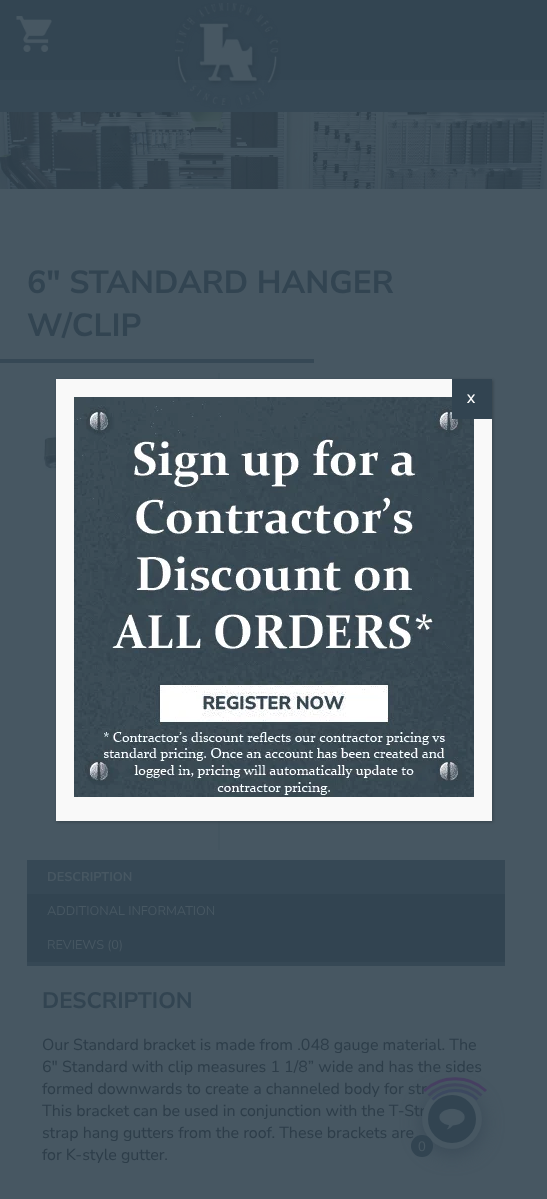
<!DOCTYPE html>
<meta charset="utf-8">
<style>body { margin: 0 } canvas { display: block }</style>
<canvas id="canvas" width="547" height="1199"></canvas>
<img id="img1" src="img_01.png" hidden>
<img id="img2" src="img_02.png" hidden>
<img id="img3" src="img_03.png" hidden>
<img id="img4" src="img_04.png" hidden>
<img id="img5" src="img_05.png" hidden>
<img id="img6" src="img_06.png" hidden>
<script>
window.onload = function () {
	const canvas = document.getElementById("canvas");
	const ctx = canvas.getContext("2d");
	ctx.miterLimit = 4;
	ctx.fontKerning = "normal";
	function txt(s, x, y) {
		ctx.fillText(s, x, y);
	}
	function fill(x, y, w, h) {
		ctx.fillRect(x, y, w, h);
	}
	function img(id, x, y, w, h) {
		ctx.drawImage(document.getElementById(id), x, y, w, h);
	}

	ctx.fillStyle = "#364855";
	fill(0, 0, 547, 1199);
	ctx.fillStyle = "#334552";
	fill(0, 0, 547, 80);
	img("img1", 16, 16, 36, 36);
	img("img2", 175, 3, 106, 106);
	img("img3", 0, 112, 547, 77);
	ctx.fillStyle = "#475762";
	fill(0, 189, 547, 1010);
	ctx.fillStyle = "#364855";
	fill(0, 359, 314, 4);
	img("img4", 42, 433, 14, 38);
	ctx.fillStyle = "#445560";
	fill(218, 373, 2, 477);
	ctx.fillStyle = "#364855";
	fill(27, 860, 478, 34);
	ctx.fillStyle = "#324451";
	fill(27, 894, 478, 68);
	ctx.fillStyle = "#364855";
	fill(27, 962, 478, 4);
	ctx.fillStyle = "rgba(2, 2, 2, 0.23)";
	ctx.filter = "blur(1.5px)";
	ctx.beginPath();
	ctx.rect(57, 380, 436, 442);
	ctx.fill();
	ctx.filter = "none";
	ctx.fillStyle = "#F9F9F9";
	fill(56, 379, 436, 442);
	img("img5", 74, 397, 400, 400);
	ctx.fillStyle = "#324451";
	fill(452, 379, 40, 40);
	ctx.fillStyle = "#394956";
	ctx.filter = "blur(10px)";
	ctx.beginPath();
	ctx.roundRect(422, 1093, 60, 60, 30);
	ctx.fill();
	ctx.filter = "none";
	ctx.font = "bold 32px Nunito Sans";
	ctx.fillStyle = "#324451";
	txt("6\" STANDARD HANGER", 27, 293);
	txt("W/CLIP", 27, 336);
	ctx.font = "bold 12.75px Nunito Sans";
	ctx.fillStyle = "#475762";
	txt("DESCRIPTION", 47, 881);
	ctx.font = "12.75px Nunito Sans";
	txt("ADDITIONAL INFORMATION", 47, 915);
	txt("REVIEWS (0)", 47, 949);
	ctx.font = "bold 22.5px Nunito Sans";
	ctx.fillStyle = "#324451";
	txt("DESCRIPTION", 42, 1008);
	ctx.font = "16px Nunito Sans";
	ctx.fillStyle = "#2D3D49";
	txt("Our Standard bracket is made from .048 gauge material. The", 42, 1050);
	txt("6″ Standard with clip measures 1 1/8” wide and has the sides", 42, 1072);
	txt("formed downwards to create a channeled body for str", 42, 1094);
	txt("This bracket can be used in conjunction with the T-Str", 42, 1116);
	txt("strap hang gutters from the roof. These brackets are", 42, 1138);
	txt("for K-style gutter.", 42, 1160);
	ctx.font = "bold 12px Nunito Sans";
	ctx.fillStyle = "#FFFFFF";
	txt("X", 467, 403);
	ctx.fillStyle = "#475762";
	ctx.beginPath();
	ctx.arc(452, 1119, 30, 0, Math.PI * 2);
	ctx.fill();
	img("img6", 428, 1095, 48, 48);
	ctx.beginPath();
	ctx.moveTo(432.5, 1099.5);
	ctx.bezierCurveTo(445, 1087.5, 465, 1087.5, 477.5, 1099.5);
	ctx.strokeStyle = "rgba(60, 72, 95, 0.92)";
	ctx.lineWidth = 3;
	ctx.stroke();
	ctx.beginPath();
	ctx.moveTo(428.5, 1095.5);
	ctx.bezierCurveTo(443, 1081, 467, 1081, 481.5, 1095.5);
	ctx.strokeStyle = "rgba(64, 70, 94, 0.92)";
	ctx.stroke();
	ctx.beginPath();
	ctx.moveTo(424, 1091);
	ctx.bezierCurveTo(441, 1074.5, 469, 1074.5, 486, 1091);
	ctx.strokeStyle = "rgba(71, 61, 98, 0.92)";
	ctx.stroke();
	ctx.fillStyle = "#324451";
	ctx.beginPath();
	ctx.arc(422, 1146, 11, 0, Math.PI * 2);
	ctx.fill();
	ctx.font = "14px Liberation Sans";
	ctx.fillStyle = "#475762";
	txt("0", 418, 1151);
};
</script>
